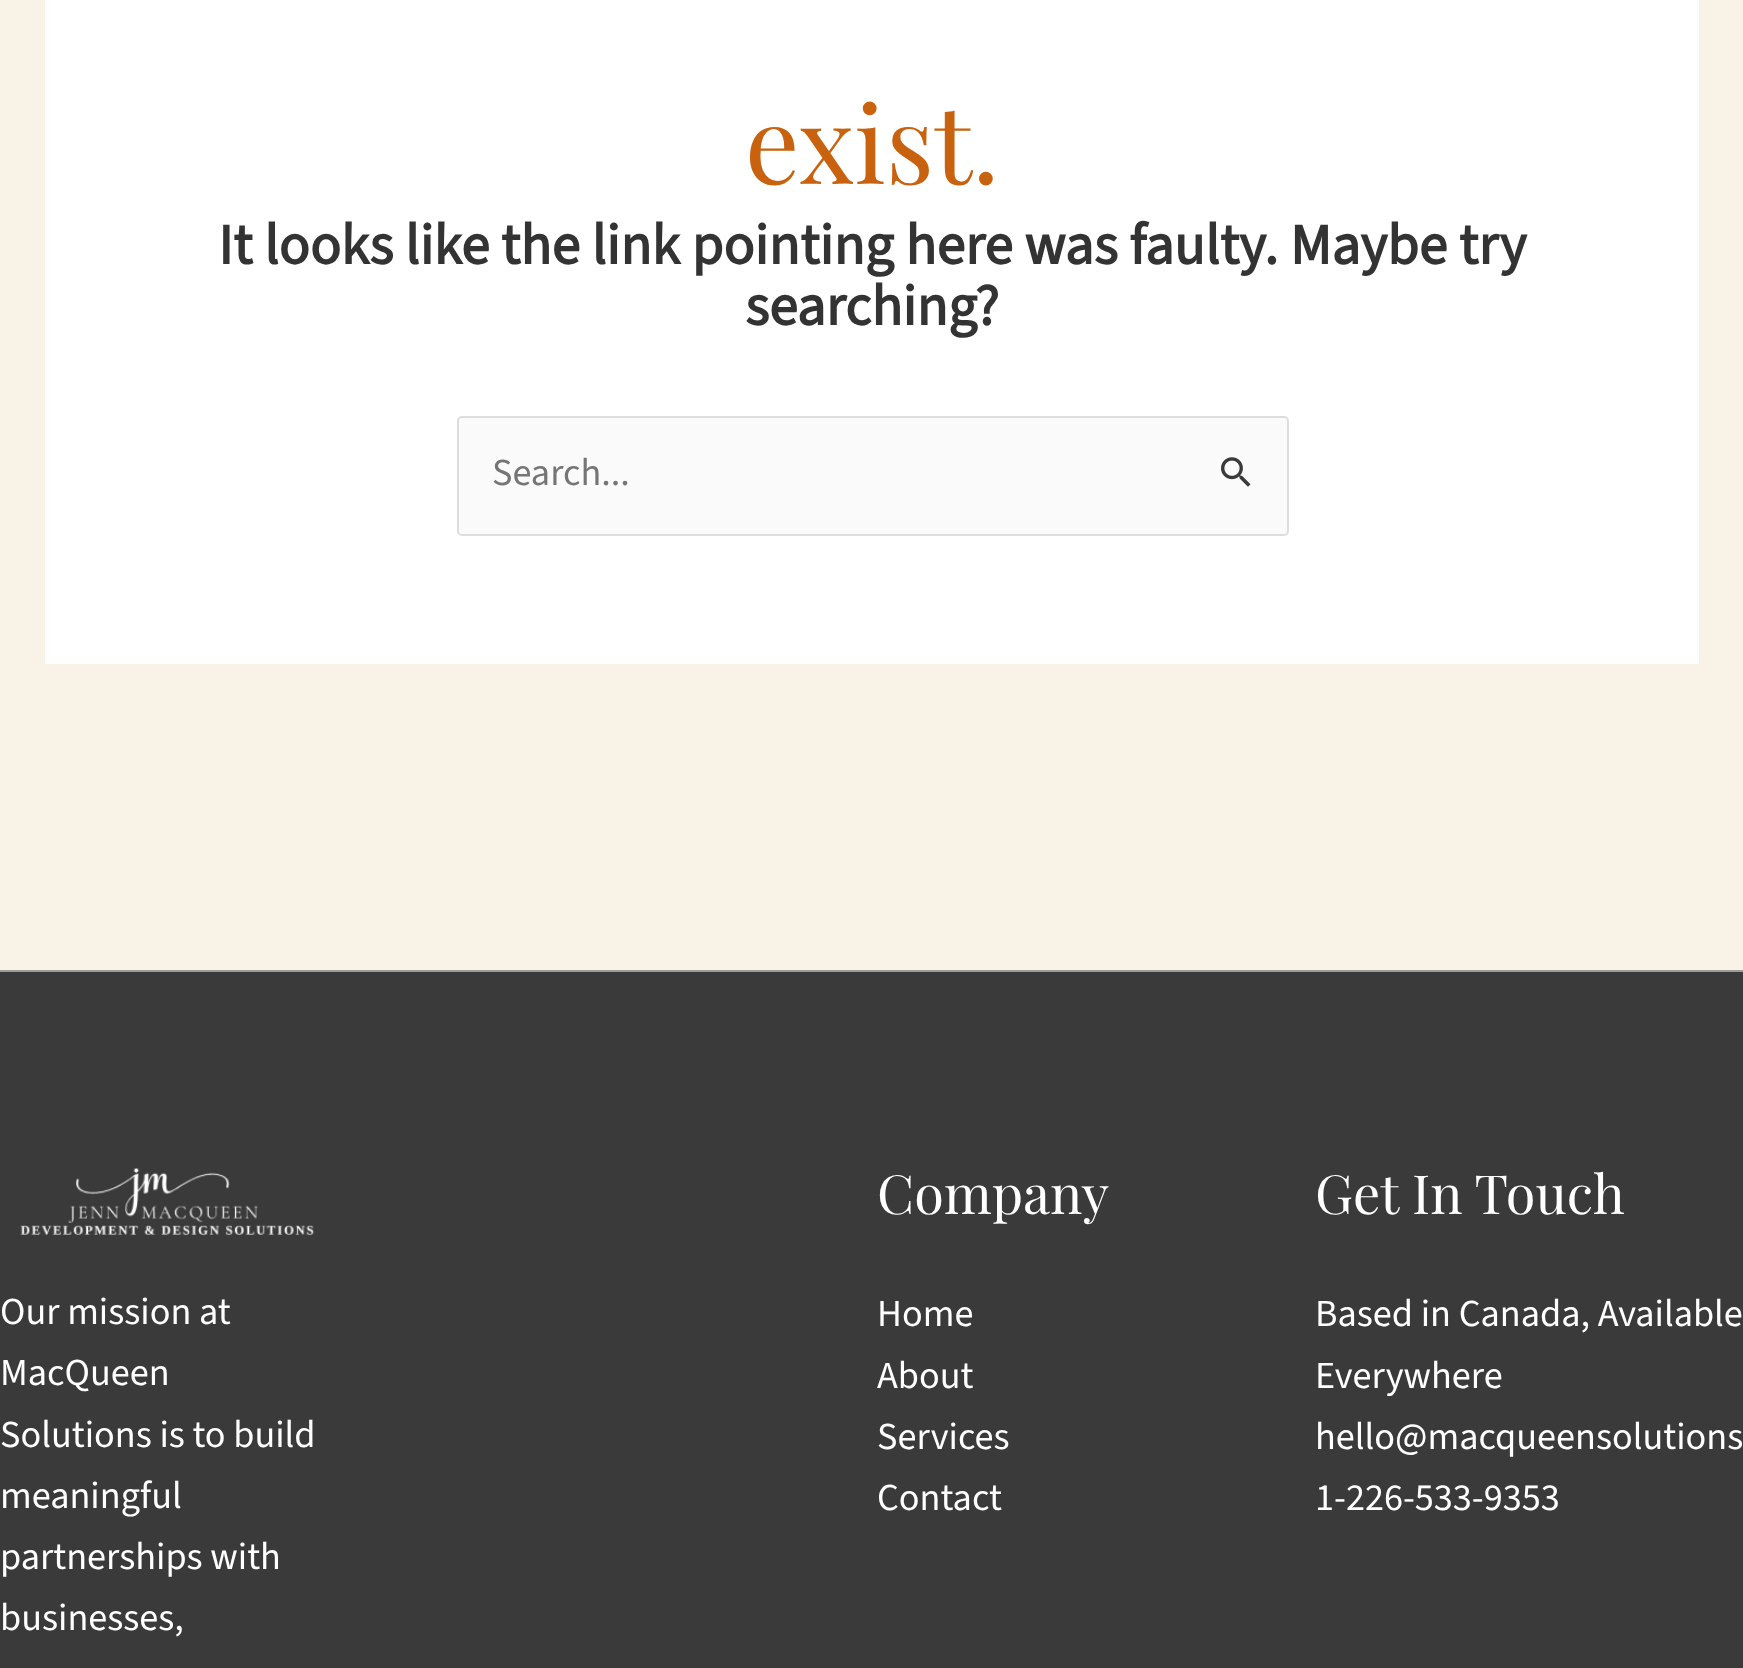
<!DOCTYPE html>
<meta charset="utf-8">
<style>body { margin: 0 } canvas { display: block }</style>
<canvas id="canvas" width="1743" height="1668"></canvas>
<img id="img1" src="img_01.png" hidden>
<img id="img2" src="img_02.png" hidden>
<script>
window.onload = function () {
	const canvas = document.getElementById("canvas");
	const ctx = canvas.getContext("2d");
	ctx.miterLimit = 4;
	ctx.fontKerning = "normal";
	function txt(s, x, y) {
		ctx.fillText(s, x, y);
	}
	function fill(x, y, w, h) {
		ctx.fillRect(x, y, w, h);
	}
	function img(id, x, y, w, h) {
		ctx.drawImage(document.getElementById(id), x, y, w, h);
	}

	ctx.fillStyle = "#F8F2E7";
	fill(0, 0, 1743, 1668);
	ctx.fillStyle = "#FFFFFF";
	fill(45, 0, 1654, 664);
	ctx.fillStyle = "#FAFAFA";
	ctx.beginPath();
	ctx.roundRect(458, 417, 830, 118, 4);
	ctx.fill();
	ctx.strokeStyle = "#DDDDDD";
	ctx.lineWidth = 2;
	ctx.stroke();
	img("img1", 1221, 457, 30, 30);
	ctx.fillStyle = "#3A3A3A";
	fill(0, 972, 1743, 696);
	ctx.fillStyle = "#9C9C9C";
	fill(0, 970, 1743, 2);
	img("img2", 20, 1168, 294, 68);
	ctx.font = "108px Playfair Display";
	ctx.fillStyle = "#C8620E";
	txt("exist.", 745, 184);
	ctx.font = "bold 57.4px 'Source Sans 3'";
	ctx.fillStyle = "#333333";
	txt("It looks like the link pointing here was faulty. Maybe try", 218, 264);
	txt("searching?", 745, 325);
	ctx.font = "200 38.25px 'Source Sans 3'";
	ctx.fillStyle = "#757575";
	txt("Search...", 492, 485);
	ctx.fillStyle = "#FFFFFF";
	txt("Our mission at", 0, 1324);
	txt("MacQueen", 0, 1385);
	txt("Solutions is to build", 0, 1447);
	txt("meaningful", 0, 1508);
	txt("partnerships with", 0, 1569);
	txt("businesses,", 0, 1630);
	ctx.font = "54px Playfair Display";
	txt("Company", 877, 1214);
	ctx.font = "200 38.25px 'Source Sans 3'";
	txt("Home", 877, 1326);
	txt("About", 877, 1388);
	txt("Services", 877, 1449);
	txt("Contact", 877, 1510);
	ctx.font = "54px Playfair Display";
	txt("Get In Touch", 1315, 1214);
	ctx.font = "200 38.25px 'Source Sans 3'";
	txt("Based in Canada, Available", 1315, 1326);
	txt("Everywhere", 1315, 1388);
	txt("hello@macqueensolutions", 1315, 1449);
	txt("1-226-533-9353", 1315, 1510);
};
</script>
